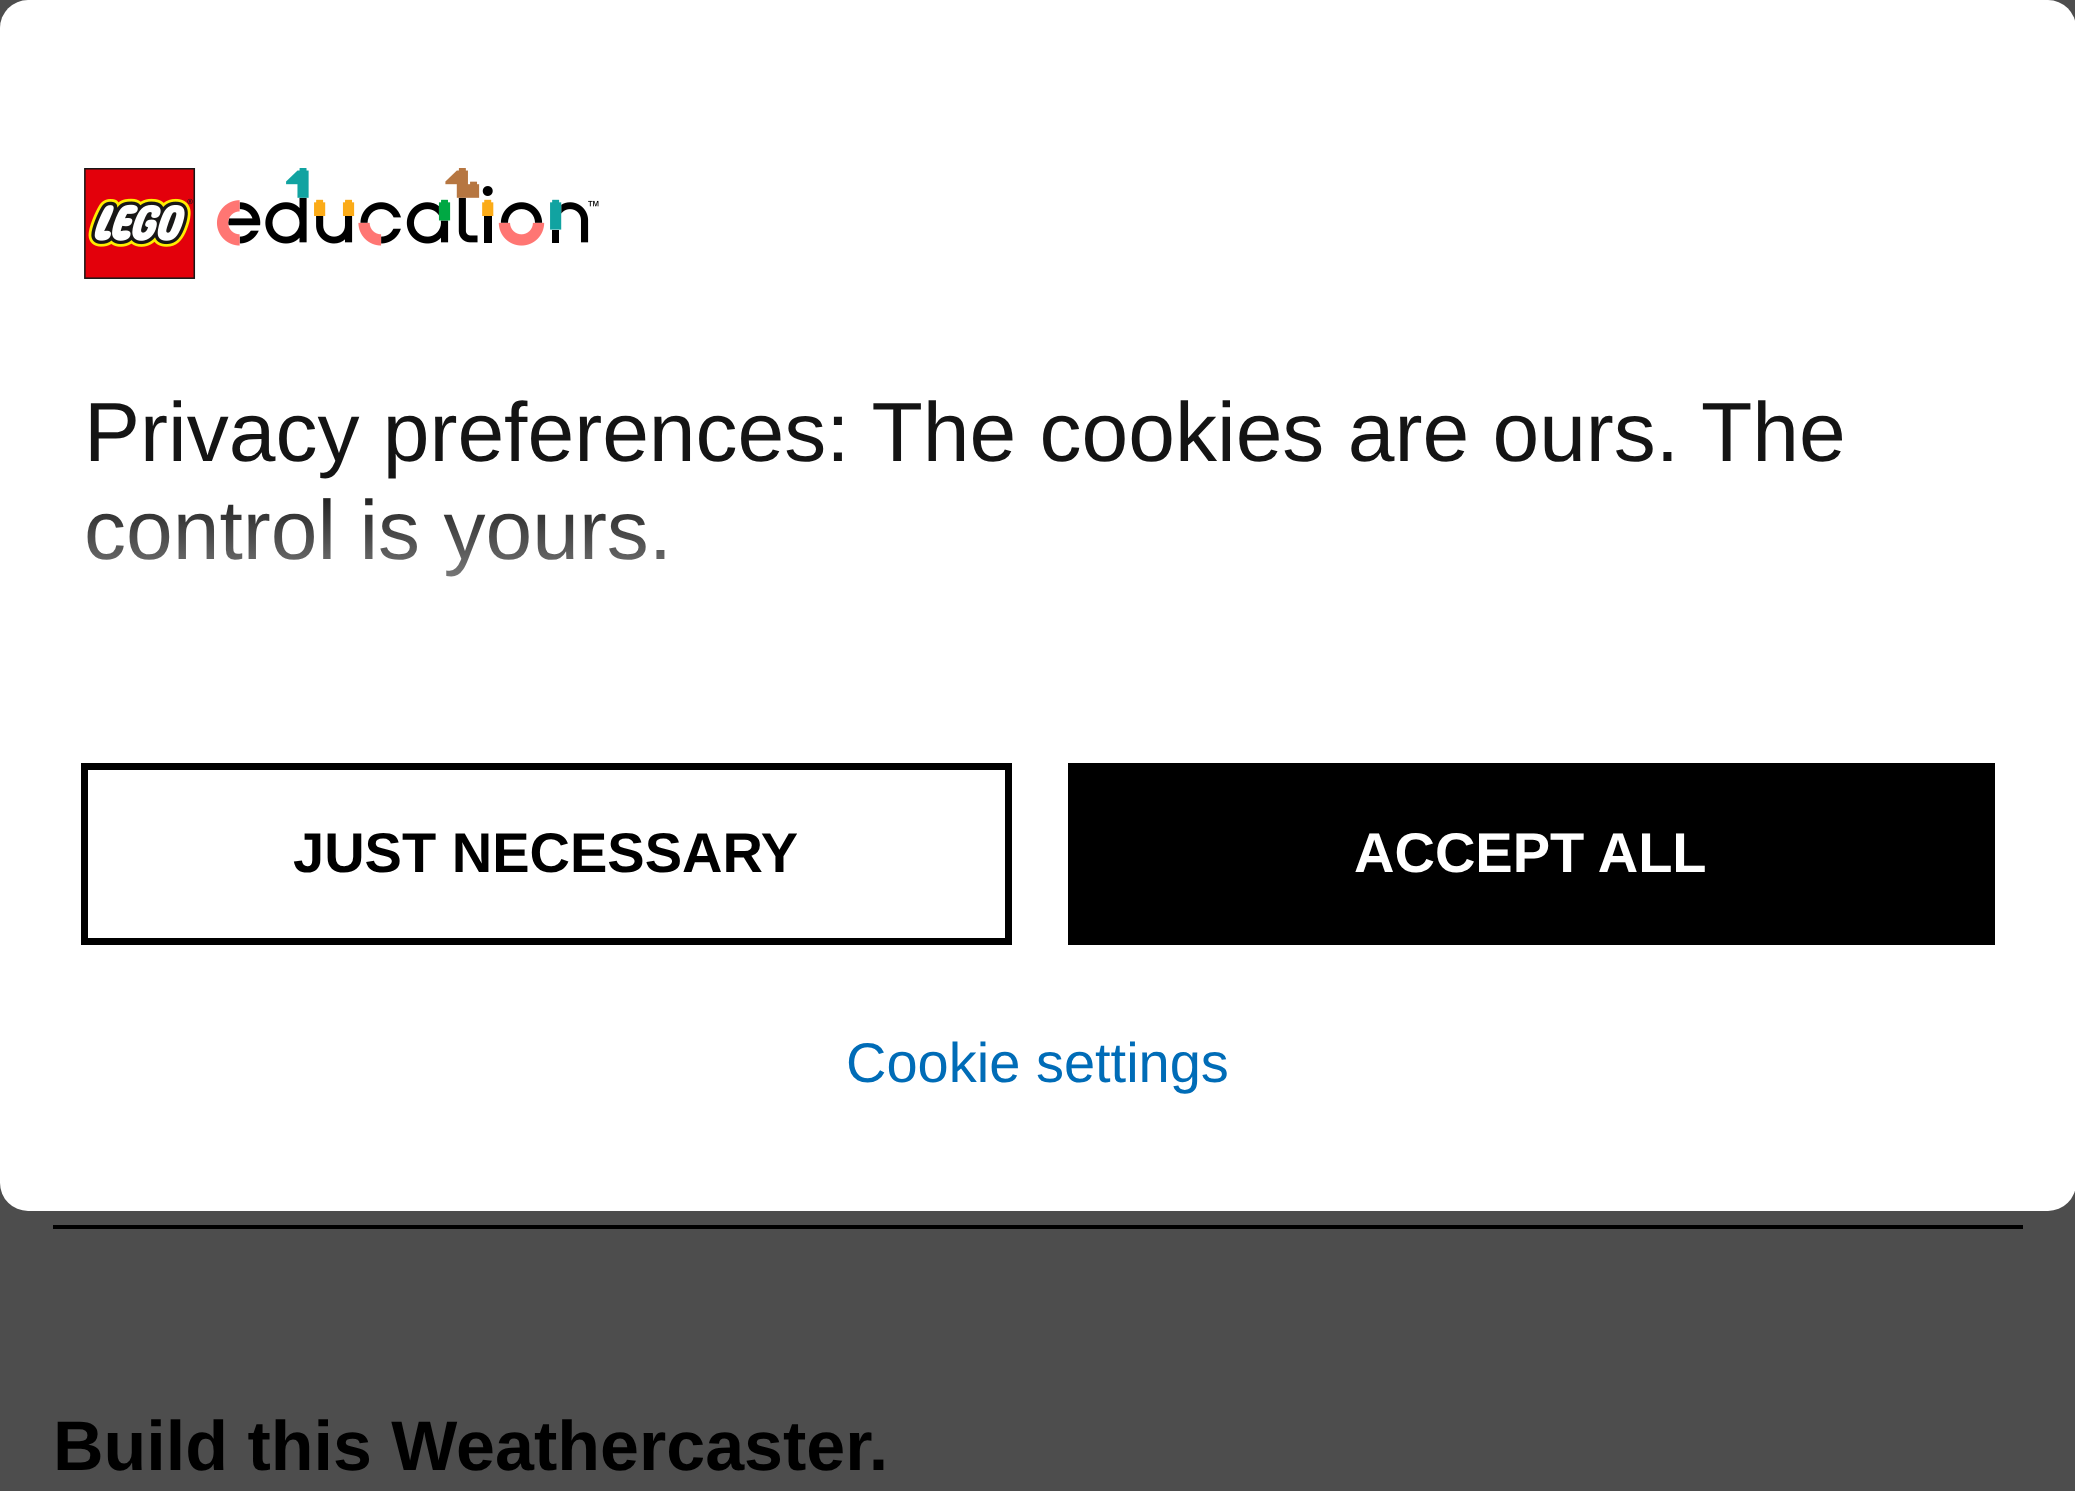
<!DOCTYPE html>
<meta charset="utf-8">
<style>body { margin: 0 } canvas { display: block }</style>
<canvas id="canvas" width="2075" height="1491"></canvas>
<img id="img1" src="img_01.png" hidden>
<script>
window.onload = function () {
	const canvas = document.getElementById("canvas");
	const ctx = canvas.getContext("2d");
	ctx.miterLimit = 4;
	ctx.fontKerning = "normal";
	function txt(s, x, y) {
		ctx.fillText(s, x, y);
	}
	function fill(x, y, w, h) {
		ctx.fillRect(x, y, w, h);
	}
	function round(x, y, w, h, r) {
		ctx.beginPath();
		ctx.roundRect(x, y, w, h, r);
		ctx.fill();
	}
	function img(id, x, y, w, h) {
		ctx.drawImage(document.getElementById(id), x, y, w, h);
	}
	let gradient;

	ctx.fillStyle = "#4D4D4D";
	fill(0, 0, 2075, 1491);
	ctx.fillStyle = "#FFFFFF";
	round(0, 0, 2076, 1211, 28);
	img("img1", 84, 168, 515, 111);
	ctx.strokeStyle = "#000000";
	ctx.lineWidth = 7;
	ctx.strokeRect(84.5, 766.5, 924, 175);
	ctx.fillStyle = "#000000";
	fill(1068, 763, 927, 182);
	fill(53, 1225, 1970, 4);
	ctx.font = "84px Liberation Sans";
	ctx.fillStyle = "#141414";
	txt("Privacy preferences: The cookies are ours. The", 84, 461);
	txt("control is yours.", 84, 559);
	gradient = ctx.createLinearGradient(1038, 483, 1038, 707);
	gradient.addColorStop(0, "rgba(255, 255, 255, 0)");
	gradient.addColorStop(1, "#FFFFFF");
	ctx.fillStyle = gradient;
	fill(87, 498, 578, 79);
	ctx.font = "bold 56px Liberation Sans";
	ctx.fillStyle = "#000000";
	txt("JUST NECESSARY", 293, 872);
	ctx.fillStyle = "#FFFFFF";
	txt("ACCEPT ALL", 1354, 872);
	ctx.font = "56px Liberation Sans";
	ctx.fillStyle = "#006CB7";
	txt("Cookie settings", 846, 1082);
	ctx.font = "bold 70px Liberation Sans";
	ctx.fillStyle = "#000000";
	txt("Build this Weathercaster.", 53, 1470);
};
</script>
